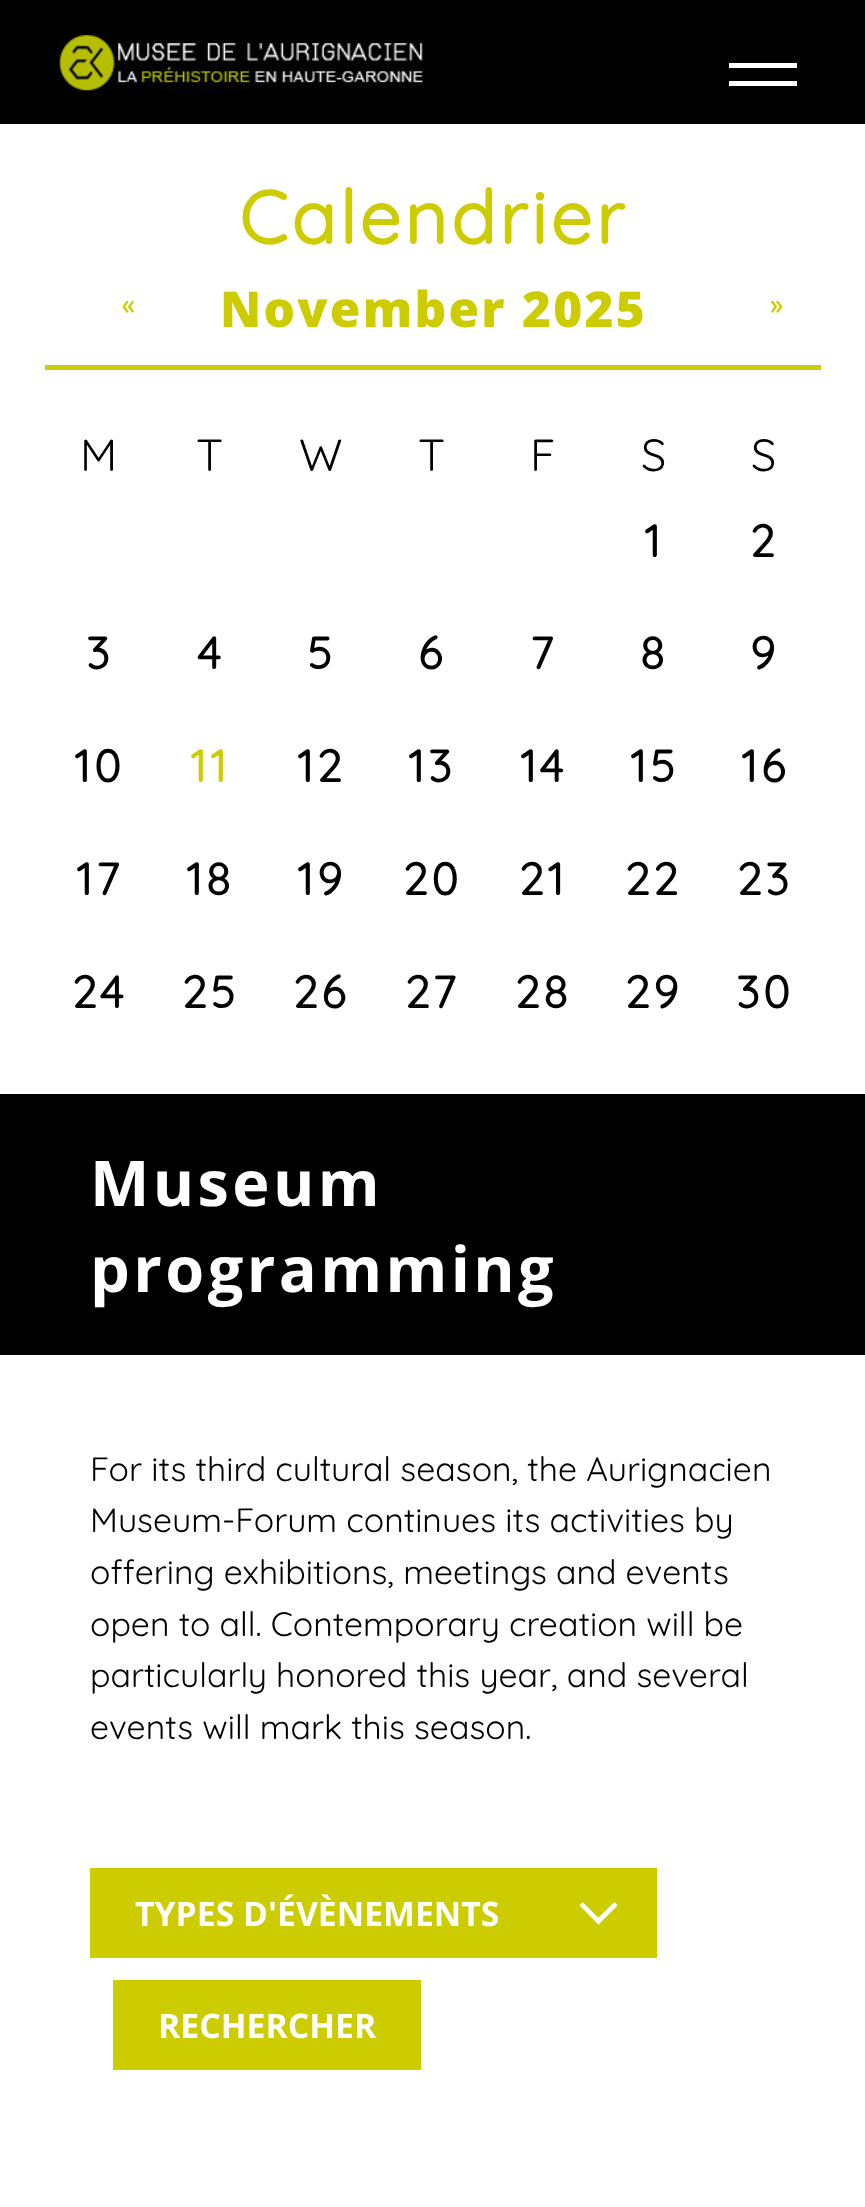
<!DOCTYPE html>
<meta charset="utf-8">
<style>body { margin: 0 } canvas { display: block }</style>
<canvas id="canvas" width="865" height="2207"></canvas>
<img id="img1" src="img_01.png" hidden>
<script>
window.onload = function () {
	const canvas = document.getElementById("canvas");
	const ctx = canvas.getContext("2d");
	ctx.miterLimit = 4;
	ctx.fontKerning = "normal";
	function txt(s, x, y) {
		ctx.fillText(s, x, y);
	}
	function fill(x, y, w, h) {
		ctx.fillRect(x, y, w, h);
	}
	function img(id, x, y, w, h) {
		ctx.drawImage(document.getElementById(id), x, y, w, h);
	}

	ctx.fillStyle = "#FFFFFF";
	fill(0, 0, 865, 2207);
	ctx.fillStyle = "#000000";
	fill(0, 0, 865, 124);
	img("img1", 58, 34, 365, 57);
	ctx.fillStyle = "#FFFFFF";
	fill(729, 63, 68, 5);
	fill(729, 81, 68, 5);
	ctx.fillStyle = "#CDCC00";
	fill(45, 365, 776, 5);
	ctx.fillStyle = "#000000";
	fill(0, 1094, 865, 261);
	ctx.fillStyle = "#CDCC00";
	fill(90, 1868, 567, 90);
	ctx.fillStyle = "#FFFFFF";
	ctx.beginPath();
	ctx.moveTo(614.5, 1902);
	ctx.lineTo(617.5, 1905.5);
	ctx.lineTo(598.5, 1924.5);
	ctx.lineTo(595, 1921);
	ctx.closePath();
	ctx.fill();
	ctx.beginPath();
	ctx.moveTo(582.5, 1902);
	ctx.lineTo(601.5, 1921);
	ctx.lineTo(598.5, 1924.5);
	ctx.lineTo(579.5, 1905.5);
	ctx.closePath();
	ctx.fill();
	ctx.fillStyle = "#CDCC00";
	fill(113, 1980, 308, 90);
	ctx.letterSpacing = "3.4px";
	ctx.font = "bold 74.25px Quicksand";
	txt("Calendrier", 239, 244);
	ctx.letterSpacing = "2.25px";
	ctx.font = "800 49.5px Open Sans";
	txt("November 2025", 220, 327);
	ctx.letterSpacing = "3.4px";
	ctx.font = "bold 27px Quicksand";
	txt("«", 122, 314);
	txt("»", 770, 314);
	ctx.font = "45px Quicksand";
	ctx.fillStyle = "#000000";
	txt("M", 80, 471);
	txt("T", 196, 471);
	txt("W", 299, 471);
	txt("T", 418, 471);
	txt("F", 530, 471);
	txt("S", 641, 471);
	txt("S", 751, 471);
	ctx.font = "bold 45px Quicksand";
	txt("1", 644, 557);
	txt("2", 750, 557);
	txt("3", 86, 669);
	txt("4", 197, 669);
	txt("5", 307, 669);
	txt("6", 418, 669);
	txt("7", 530, 669);
	txt("8", 640, 669);
	txt("9", 750, 669);
	txt("10", 74, 782);
	ctx.fillStyle = "#CDCC00";
	txt("11", 190, 782);
	ctx.fillStyle = "#000000";
	txt("12", 297, 782);
	txt("13", 408, 782);
	txt("14", 520, 782);
	txt("15", 630, 782);
	txt("16", 741, 782);
	txt("17", 76, 895);
	txt("18", 186, 895);
	txt("19", 297, 895);
	txt("20", 403, 895);
	txt("21", 519, 895);
	txt("22", 625, 895);
	txt("23", 737, 895);
	txt("24", 72, 1008);
	txt("25", 182, 1008);
	txt("26", 293, 1008);
	txt("27", 405, 1008);
	txt("28", 515, 1008);
	txt("29", 625, 1008);
	txt("30", 736, 1008);
	ctx.font = "bold 63px Open Sans";
	ctx.fillStyle = "#FFFFFF";
	txt("Museum", 90, 1206);
	txt("programming", 90, 1292);
	ctx.letterSpacing = "0px";
	ctx.font = "33.75px Quicksand";
	ctx.fillStyle = "#000000";
	txt("For its third cultural season, the Aurignacien", 90, 1481);
	txt("Museum-Forum continues its activities by", 90, 1532);
	txt("offering exhibitions, meetings and events", 90, 1584);
	txt("open to all. Contemporary creation will be", 90, 1636);
	txt("particularly honored this year, and several", 90, 1687);
	txt("events will mark this season.", 90, 1739);
	ctx.font = "bold 33.75px Open Sans";
	ctx.fillStyle = "#FFFFFF";
	txt("TYPES D'ÉVÈNEMENTS", 135, 1926);
	txt("RECHERCHER", 158, 2038);
};
</script>
